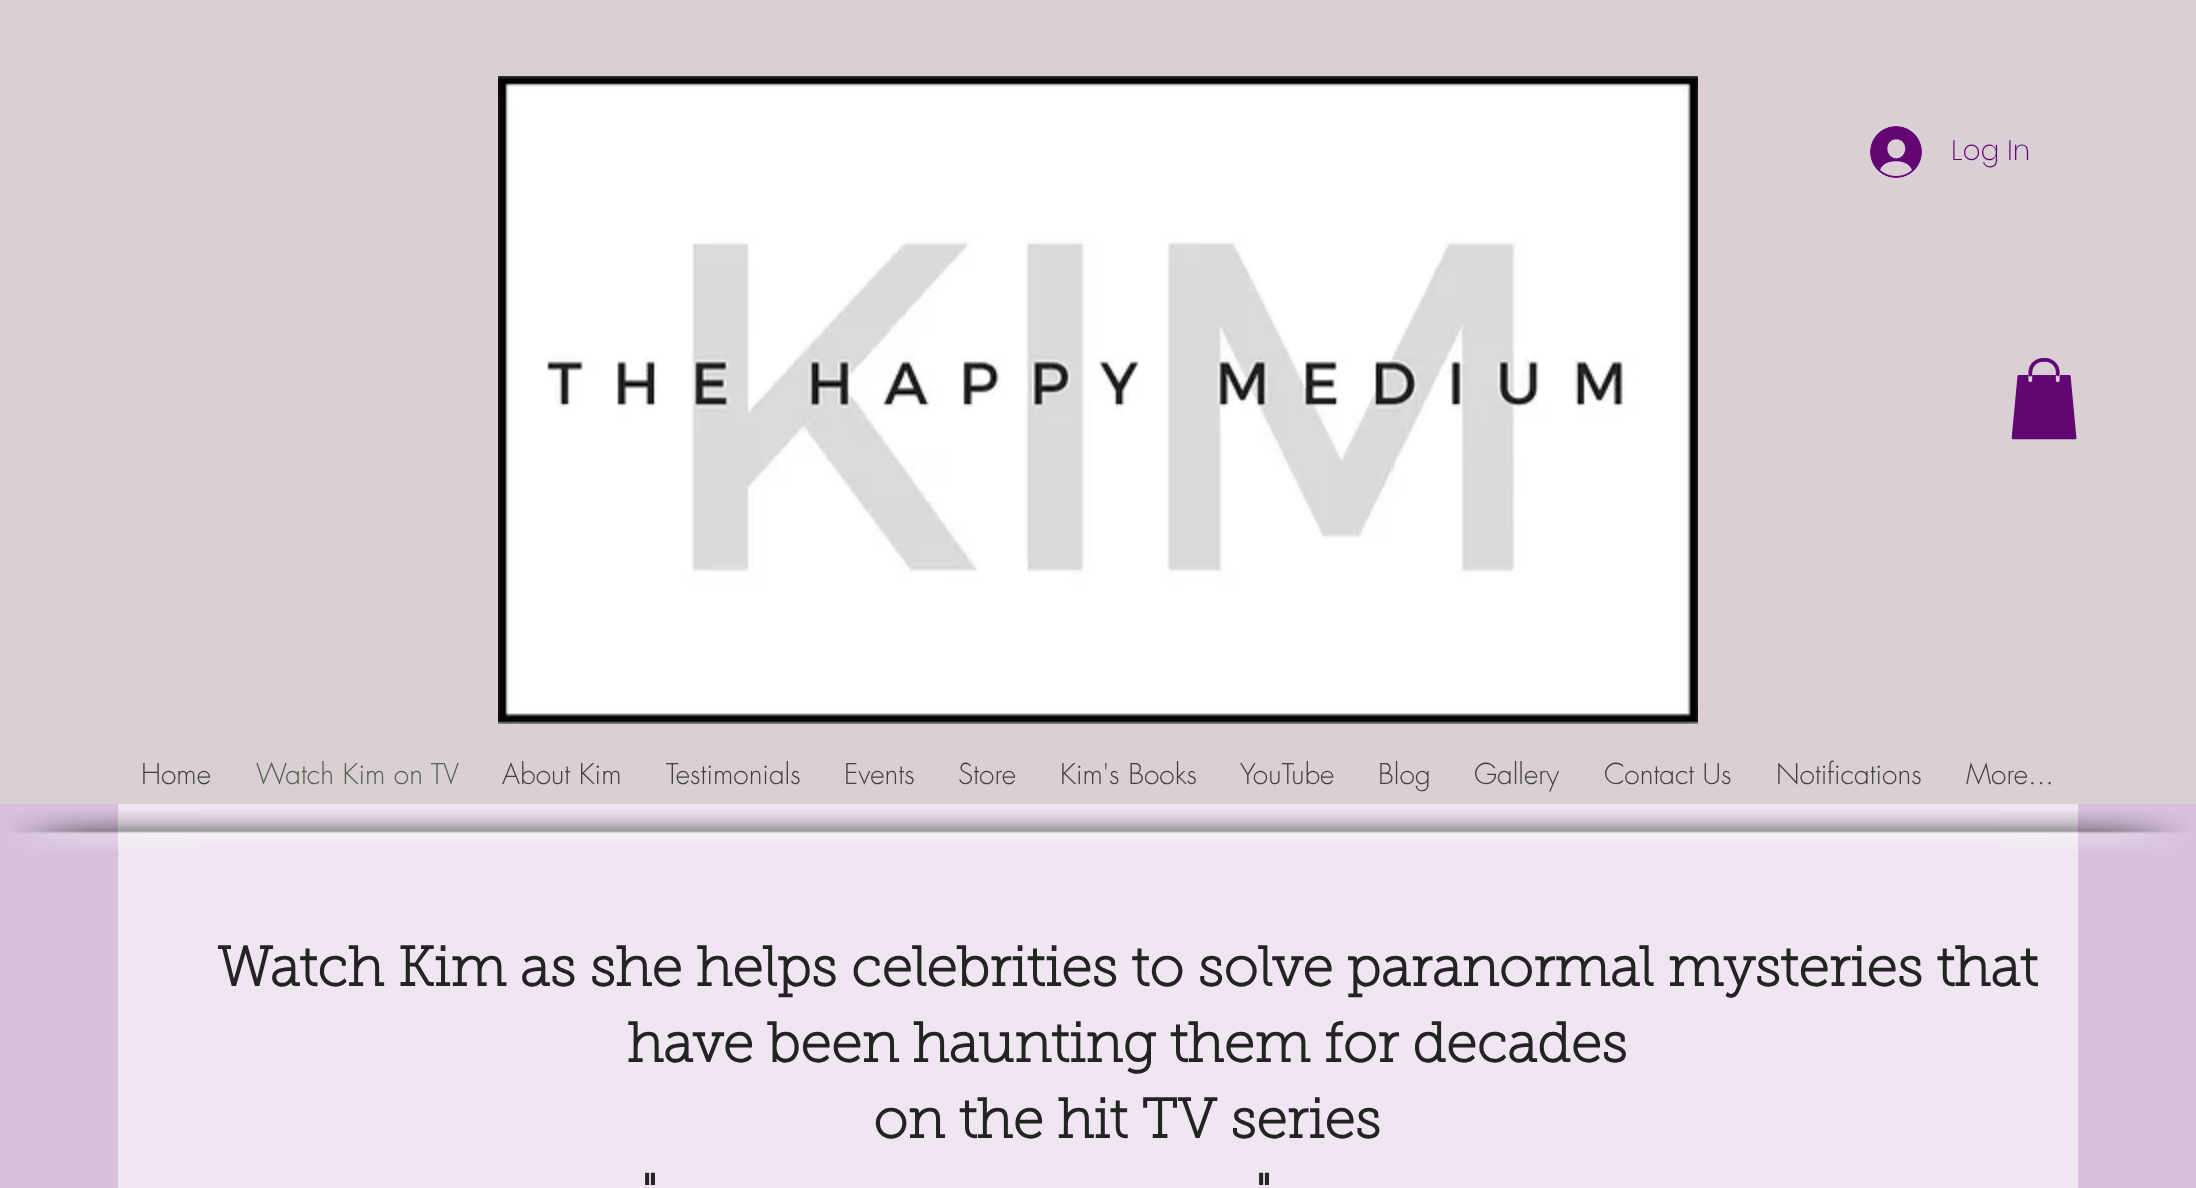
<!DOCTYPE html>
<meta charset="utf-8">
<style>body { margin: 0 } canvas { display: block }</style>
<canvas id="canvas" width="2196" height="1188"></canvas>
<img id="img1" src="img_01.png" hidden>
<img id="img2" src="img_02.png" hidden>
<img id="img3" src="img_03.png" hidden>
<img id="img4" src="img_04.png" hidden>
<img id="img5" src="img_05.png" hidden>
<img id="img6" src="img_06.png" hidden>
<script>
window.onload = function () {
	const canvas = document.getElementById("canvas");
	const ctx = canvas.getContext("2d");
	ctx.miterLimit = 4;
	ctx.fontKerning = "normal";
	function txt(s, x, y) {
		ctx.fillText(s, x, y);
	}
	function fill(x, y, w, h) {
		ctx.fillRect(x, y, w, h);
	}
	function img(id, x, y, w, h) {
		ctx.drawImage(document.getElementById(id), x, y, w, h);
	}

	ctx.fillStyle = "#D8C1DD";
	fill(0, 0, 2196, 1188);
	ctx.fillStyle = "#DACFD4";
	fill(0, 0, 2196, 804);
	img("img1", 498, 76, 1200, 648);
	img("img2", 1870, 126, 52, 52);
	img("img3", 2011, 358, 66, 82);
	ctx.fillStyle = "#F0E6F2";
	fill(118, 804, 1960, 384);
	img("img4", 7, 810, 193, 41);
	img("img5", 200, 809, 1796, 35);
	img("img6", 1996, 810, 193, 41);
	ctx.font = "200 28px Poppins";
	ctx.fillStyle = "#620674";
	txt("Log In", 1951, 160);
	ctx.font = "300 28px futura";
	ctx.fillStyle = "#404040";
	txt("Home", 141, 784);
	ctx.fillStyle = "#53614D";
	txt("Watch Kim on TV", 256, 784);
	ctx.fillStyle = "#404040";
	txt("About Kim", 502, 784);
	txt("Testimonials", 666, 784);
	txt("Events", 844, 784);
	txt("Store", 958, 784);
	txt("Kim's Books", 1060, 784);
	txt("YouTube", 1240, 784);
	txt("Blog", 1378, 784);
	txt("Gallery", 1474, 784);
	txt("Contact Us", 1604, 784);
	txt("Notifications", 1776, 784);
	txt("More...", 1966, 784);
	ctx.font = "bold 56px 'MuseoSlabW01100'";
	ctx.fillStyle = "#232323";
	txt("Watch Kim as she helps celebrities to solve paranormal mysteries that", 217, 986);
	txt("have been haunting them for decades", 627, 1062);
	txt("on the hit TV series", 873, 1138);
	txt("\"", 641, 1214);
	txt("\"", 1255, 1214);
};
</script>
